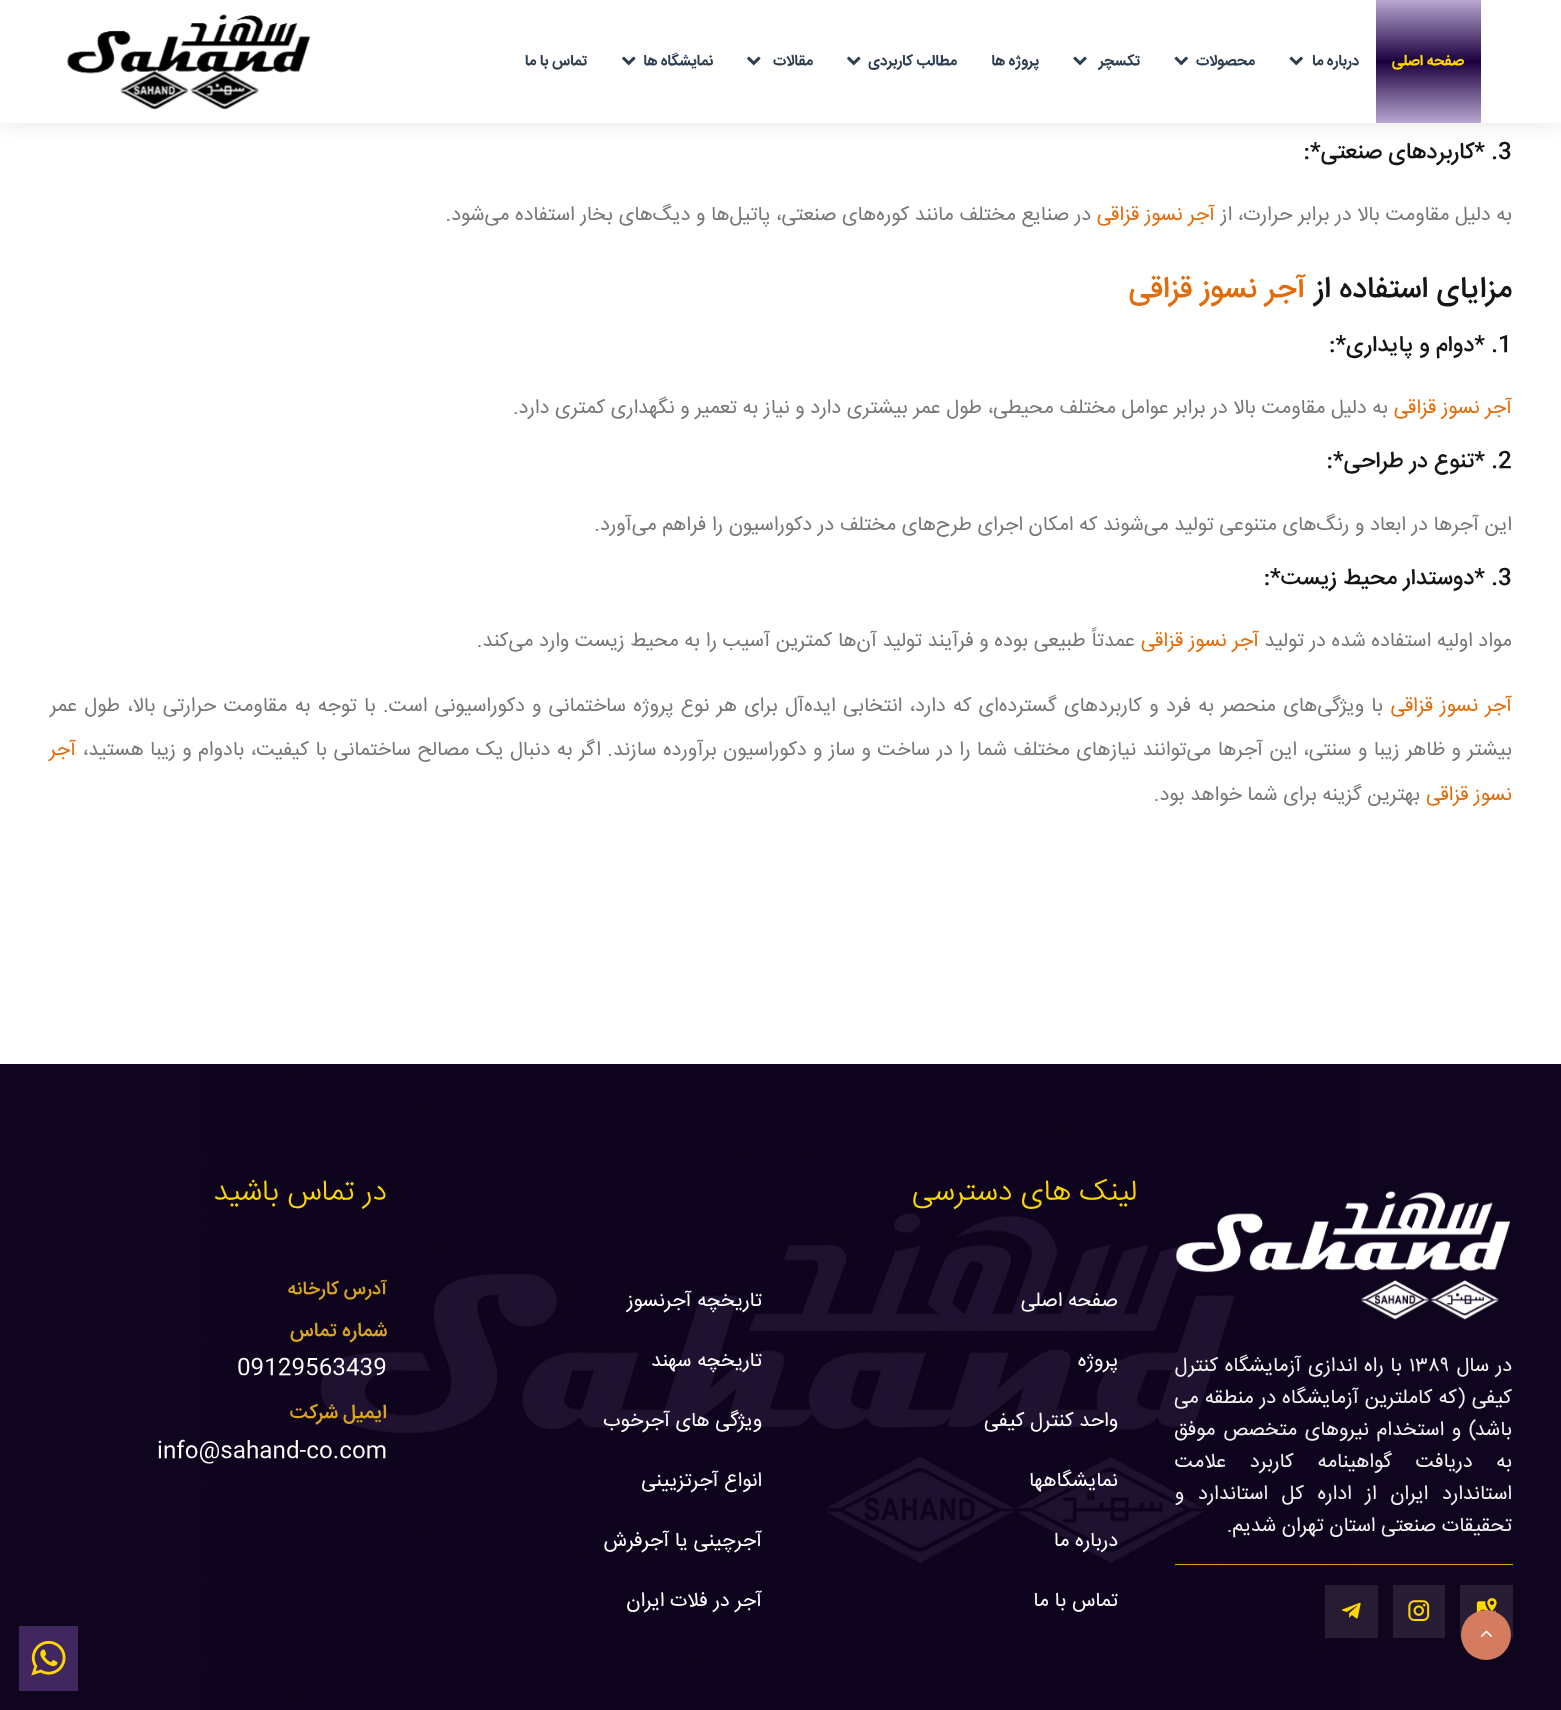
<!DOCTYPE html>
<meta charset="utf-8">
<style>body { margin: 0 } canvas { display: block }</style>
<canvas id="canvas" width="1561" height="1710"></canvas>
<img id="img1" src="img_01.png" hidden>
<img id="img2" src="img_02.png" hidden>
<img id="img3" src="img_03.png" hidden>
<img id="img4" src="img_04.png" hidden>
<img id="img5" src="img_05.png" hidden>
<img id="img6" src="img_06.png" hidden>
<img id="img7" src="img_07.png" hidden>
<img id="img8" src="img_08.png" hidden>
<img id="img9" src="img_09.png" hidden>
<img id="img10" src="img_10.png" hidden>
<img id="img11" src="img_11.png" hidden>
<script>
window.onload = function () {
	const canvas = document.getElementById("canvas");
	const ctx = canvas.getContext("2d");
	ctx.miterLimit = 4;
	ctx.fontKerning = "normal";
	function txt(s, x, y) {
		ctx.fillText(s, x, y);
	}
	function fill(x, y, w, h) {
		ctx.fillRect(x, y, w, h);
	}
	function img(id, x, y, w, h) {
		ctx.drawImage(document.getElementById(id), x, y, w, h);
	}
	let gradient;

	ctx.fillStyle = "#FFFFFF";
	fill(0, 0, 1561, 1710);
	ctx.fillStyle = "rgba(0, 0, 0, 0.1)";
	ctx.filter = "blur(12.5px)";
	ctx.beginPath();
	ctx.rect(0, 0, 1561, 123);
	ctx.fill();
	ctx.filter = "none";
	ctx.fillStyle = "#FFFFFF";
	fill(0, 0, 1561, 123);
	gradient = ctx.createLinearGradient(1429, 0, 1429, 123);
	gradient.addColorStop(0, "#B9A7D2");
	gradient.addColorStop(0.5, "#1B003E");
	gradient.addColorStop(1, "#B9A7D2");
	ctx.fillStyle = gradient;
	fill(1376, 0, 105, 123);
	img("img1", 1289, 56, 14, 10);
	img("img1", 1174, 56, 14, 10);
	img("img2", 1073, 56, 14, 10);
	img("img3", 847, 56, 14, 10);
	img("img3", 747, 56, 14, 10);
	img("img3", 622, 56, 14, 10);
	img("img4", 67, 14, 244, 95);
	img("img5", 0, 1064, 1561, 646);
	img("img6", 1175, 1191, 336, 129);
	ctx.fillStyle = "#DAA520";
	fill(1175, 1564, 338, 1);
	ctx.fillStyle = "#271E35";
	fill(1460, 1585, 53, 53);
	img("img7", 1476, 1598, 21, 15);
	fill(1393, 1585, 52, 53);
	img("img8", 1408, 1600, 22, 21);
	ctx.fillStyle = "#261D34";
	fill(1325, 1585, 53, 53);
	img("img9", 1342, 1602, 19, 17);
	ctx.fillStyle = "#402760";
	fill(19, 1626, 59, 65);
	img("img10", 31, 1640, 35, 36);
	ctx.fillStyle = "#D57B60";
	ctx.beginPath();
	ctx.arc(1486, 1635, 25, 0, Math.PI * 2);
	ctx.fill();
	img("img11", 1480, 1630, 12, 7);
	ctx.direction = "rtl";
	ctx.font = "bold 15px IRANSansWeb";
	ctx.fillStyle = "#FFD700";
	txt("صفحه اصلی", 1464, 65);
	ctx.fillStyle = "#2D3E50";
	txt("درباره ما", 1359, 65);
	txt("محصولات", 1255, 65);
	txt("تکسچر", 1140, 65);
	txt("پروژه ها", 1039, 65);
	txt("مطالب کاربردی", 957, 65);
	txt("مقالات", 813, 65);
	txt("نمایشگاه ها", 713, 65);
	txt("تماس با ما", 587, 65);
	ctx.direction = "ltr";
	ctx.font = "500 22.5px IRANSansWeb";
	ctx.fillStyle = "#151515";
	txt("3", 1498, 158);
	ctx.direction = "rtl";
	txt(". *کاربردهای صنعتی*:", 1498, 158);
	ctx.font = "20px IRANSansWeb";
	ctx.fillStyle = "#777777";
	txt("به دلیل مقاومت بالا در برابر حرارت، از", 1512, 220);
	ctx.fillStyle = "#E36C09";
	txt("آجر نسوز قزاقی", 1215, 220);
	ctx.fillStyle = "#777777";
	txt("در صنایع مختلف مانند کوره‌های صنعتی، پاتیل‌ها و دیگ‌های بخار استفاده می‌شود.", 1091, 220);
	ctx.font = "500 30px IRANSansWeb";
	ctx.fillStyle = "#151515";
	txt("مزایای استفاده از", 1512, 297);
	ctx.fillStyle = "#E36C09";
	txt("آجر نسوز قزاقی", 1306, 297);
	ctx.direction = "ltr";
	ctx.font = "500 22.5px IRANSansWeb";
	ctx.fillStyle = "#151515";
	txt("1", 1498, 351);
	ctx.direction = "rtl";
	txt(". *دوام و پایداری*:", 1498, 351);
	ctx.font = "20px IRANSansWeb";
	ctx.fillStyle = "#E36C09";
	txt("آجر نسوز قزاقی", 1512, 413);
	ctx.fillStyle = "#777777";
	txt("به دلیل مقاومت بالا در برابر عوامل مختلف محیطی، طول عمر بیشتری دارد و نیاز به تعمیر و نگهداری کمتری دارد.", 1388, 413);
	ctx.direction = "ltr";
	ctx.font = "500 22.5px IRANSansWeb";
	ctx.fillStyle = "#151515";
	txt("2", 1498, 467);
	ctx.direction = "rtl";
	txt(". *تنوع در طراحی*:", 1498, 467);
	ctx.font = "20px IRANSansWeb";
	ctx.fillStyle = "#777777";
	txt("این آجرها در ابعاد و رنگ‌های متنوعی تولید می‌شوند که امکان اجرای طرح‌های مختلف در دکوراسیون را فراهم می‌آورد.", 1512, 530);
	ctx.direction = "ltr";
	ctx.font = "500 22.5px IRANSansWeb";
	ctx.fillStyle = "#151515";
	txt("3", 1498, 584);
	ctx.direction = "rtl";
	txt(". *دوستدار محیط زیست*:", 1498, 584);
	ctx.font = "20px IRANSansWeb";
	ctx.fillStyle = "#777777";
	txt("مواد اولیه استفاده شده در تولید", 1512, 646);
	ctx.fillStyle = "#E36C09";
	txt("آجر نسوز قزاقی", 1259, 646);
	ctx.fillStyle = "#777777";
	txt("عمدتاً طبیعی بوده و فرآیند تولید آن‌ها کمترین آسیب را به محیط زیست وارد می‌کند.", 1135, 646);
	ctx.wordSpacing = "1.6px";
	ctx.fillStyle = "#E36C09";
	txt("آجر نسوز قزاقی", 1512, 711);
	ctx.fillStyle = "#777777";
	txt("با ویژگی‌های منحصر به فرد و کاربردهای گسترده‌ای که دارد، انتخابی ایده‌آل برای هر نوع پروژه ساختمانی و دکوراسیونی است. با توجه به مقاومت حرارتی بالا، طول عمر", 1383, 711);
	ctx.wordSpacing = "0.75px";
	txt("بیشتر و ظاهر زیبا و سنتی، این آجرها می‌توانند نیازهای مختلف شما را در ساخت و ساز و دکوراسیون برآورده سازند. اگر به دنبال یک مصالح ساختمانی با کیفیت، بادوام و زیبا هستید،", 1512, 755);
	ctx.wordSpacing = "0px";
	ctx.fillStyle = "#E36C09";
	txt("آجر", 76, 755);
	txt("نسوز قزاقی", 1512, 800);
	ctx.fillStyle = "#777777";
	txt("بهترین گزینه برای شما خواهد بود.", 1420, 800);
	ctx.wordSpacing = "1px";
	ctx.fillStyle = "#F1F1F1";
	txt("در سال", 1512, 1371);
	ctx.wordSpacing = "0px";
	ctx.direction = "ltr";
	txt("۱۳۸۹", 1409, 1371);
	ctx.wordSpacing = "1px";
	ctx.direction = "rtl";
	txt("با راه اندازی آزمایشگاه کنترل", 1402, 1371);
	ctx.wordSpacing = "0.5px";
	txt("کیفی (که کاملترین آزمایشگاه در منطقه می", 1512, 1403);
	ctx.wordSpacing = "2px";
	txt("باشد) و استخدام نیروهای متخصص موفق", 1512, 1435);
	ctx.wordSpacing = "18px";
	txt("به دریافت گواهینامه کاربرد علامت", 1512, 1467);
	ctx.wordSpacing = "8px";
	txt("استاندارد ایران از اداره کل استاندارد و", 1512, 1499);
	ctx.wordSpacing = "0px";
	txt("تحقیقات صنعتی استان تهران شدیم.", 1512, 1531);
	ctx.font = "300 30px IRANSansWeb";
	ctx.fillStyle = "#FFD700";
	txt("لینک های دسترسی", 1137, 1200);
	ctx.font = "20px IRANSansWeb";
	ctx.fillStyle = "#FFFFFF";
	txt("صفحه اصلی", 1118, 1306);
	txt("پروژه", 1118, 1366);
	txt("واحد کنترل کیفی", 1118, 1426);
	txt("نمایشگاهها", 1118, 1486);
	txt("درباره ما", 1118, 1546);
	txt("تماس با ما", 1118, 1606);
	txt("تاریخچه آجرنسوز", 762, 1306);
	txt("تاریخچه سهند", 762, 1366);
	txt("ویژگی های آجرخوب", 762, 1426);
	txt("انواع آجرتزیینی", 762, 1486);
	txt("آجرچینی یا آجرفرش", 762, 1546);
	txt("آجر در فلات ایران", 762, 1606);
	ctx.font = "300 30px IRANSansWeb";
	ctx.fillStyle = "#FFD700";
	txt("در تماس باشید", 387, 1200);
	ctx.font = "500 18.75px IRANSansWeb";
	ctx.fillStyle = "#DAA520";
	txt("آدرس کارخانه", 387, 1294);
	ctx.font = "500 20px IRANSansWeb";
	txt("شماره تماس", 387, 1336);
	ctx.direction = "ltr";
	ctx.font = "22.5px IRANSansWeb";
	ctx.fillStyle = "#FFFFFF";
	txt("09129563439", 237, 1374);
	ctx.direction = "rtl";
	ctx.font = "500 20px IRANSansWeb";
	ctx.fillStyle = "#DAA520";
	txt("ایمیل شرکت", 387, 1418);
	ctx.direction = "ltr";
	ctx.font = "22.5px IRANSansWeb";
	ctx.fillStyle = "#FFFFFF";
	txt("info@sahand-co.com", 157, 1457);
};
</script>
